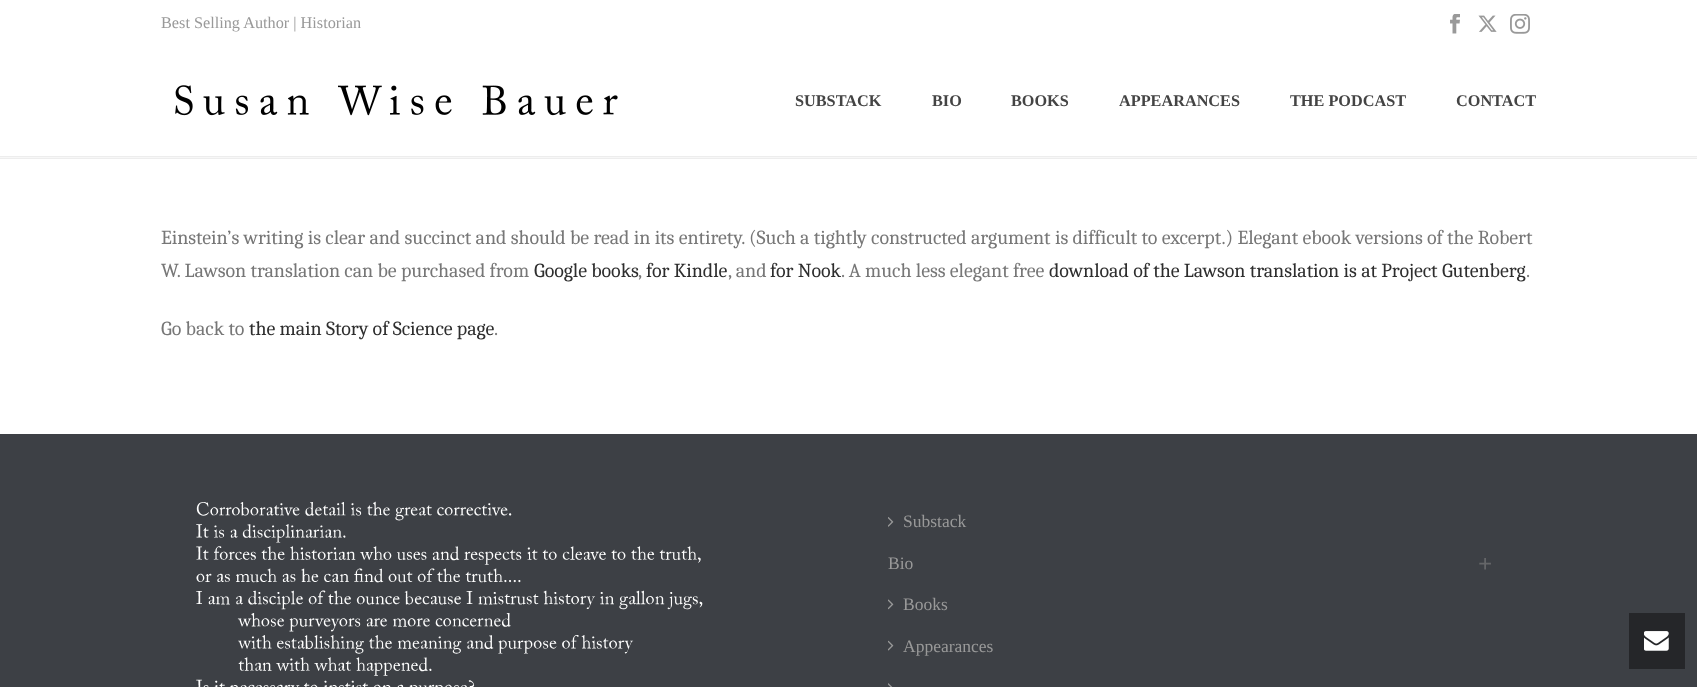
<!DOCTYPE html>
<meta charset="utf-8">
<style>body { margin: 0 } canvas { display: block }</style>
<canvas id="canvas" width="1697" height="687"></canvas>
<img id="img1" src="img_01.png" hidden>
<img id="img2" src="img_02.png" hidden>
<img id="img3" src="img_03.png" hidden>
<img id="img4" src="img_04.png" hidden>
<img id="img5" src="img_05.png" hidden>
<img id="img6" src="img_06.png" hidden>
<img id="img7" src="img_07.png" hidden>
<img id="img8" src="img_08.png" hidden>
<img id="img9" src="img_09.png" hidden>
<img id="img10" src="img_10.png" hidden>
<script>
window.onload = function () {
	const canvas = document.getElementById("canvas");
	const ctx = canvas.getContext("2d");
	ctx.miterLimit = 4;
	ctx.fontKerning = "normal";
	function txt(s, x, y) {
		ctx.fillText(s, x, y);
	}
	function fill(x, y, w, h) {
		ctx.fillRect(x, y, w, h);
	}
	function img(id, x, y, w, h) {
		ctx.drawImage(document.getElementById(id), x, y, w, h);
	}

	ctx.fillStyle = "#FFFFFF";
	fill(0, 0, 1697, 687);
	ctx.fillStyle = "#F7F7F7";
	fill(0, 157, 1697, 1);
	ctx.fillStyle = "#EDEDED";
	fill(0, 158, 1697, 1);
	img("img1", 1450, 14, 10, 20);
	img("img2", 1478, 15, 19, 17);
	img("img3", 1510, 14, 20, 20);
	fill(0, 156, 1697, 1);
	img("img4", 175, 85, 443, 31);
	ctx.fillStyle = "#3D4045";
	fill(0, 434, 1697, 253);
	img("img5", 196, 501, 507, 186);
	img("img6", 888, 517, 6, 10);
	img("img7", 888, 599, 6, 11);
	img("img8", 888, 640, 6, 11);
	img("img9", 888, 683, 5, 4);
	ctx.fillStyle = "#252629";
	fill(1629, 613, 56, 56);
	img("img10", 1644, 631, 25, 20);
	ctx.font = "16.25px Liberation Serif";
	ctx.fillStyle = "#999999";
	txt("Best Selling Author | Historian", 161, 28);
	ctx.font = "bold 16.25px Liberation Serif";
	ctx.fillStyle = "#444444";
	txt("SUBSTACK", 795, 106);
	txt("BIO", 932, 106);
	txt("BOOKS", 1011, 106);
	txt("APPEARANCES", 1119, 106);
	txt("THE PODCAST", 1290, 106);
	txt("CONTACT", 1456, 106);
	ctx.letterSpacing = "-0.06px";
	ctx.font = "20px Caladea";
	ctx.fillStyle = "#777777";
	txt("Einstein’s writing is clear and succinct and should be read in its entirety. (Such a tightly constructed argument is difficult to excerpt.) Elegant ebook versions of the Robert", 161, 244);
	txt("W. Lawson translation can be purchased from", 161, 277);
	ctx.fillStyle = "#2E2E2E";
	txt("Google books", 534, 277);
	ctx.fillStyle = "#777777";
	txt(",", 638, 277);
	ctx.fillStyle = "#2E2E2E";
	txt("for Kindle", 646, 277);
	ctx.fillStyle = "#777777";
	txt(", and", 728, 277);
	ctx.fillStyle = "#2E2E2E";
	txt("for Nook", 770, 277);
	ctx.fillStyle = "#777777";
	txt(". A much less elegant free", 841, 277);
	ctx.fillStyle = "#2E2E2E";
	txt("download of the Lawson translation is at Project Gutenberg", 1049, 277);
	ctx.fillStyle = "#777777";
	txt(".", 1526, 277);
	txt("Go back to", 161, 335);
	ctx.fillStyle = "#2E2E2E";
	txt("the main Story of Science page", 249, 335);
	ctx.fillStyle = "#777777";
	txt(".", 494, 335);
	ctx.letterSpacing = "0px";
	ctx.font = "17.5px Liberation Serif";
	ctx.fillStyle = "#999999";
	txt("Substack", 903, 527);
	txt("Bio", 888, 569);
	ctx.font = "bold 25px Liberation Serif";
	ctx.fillStyle = "#656668";
	txt("+", 1478, 572);
	ctx.font = "17.5px Liberation Serif";
	ctx.fillStyle = "#999999";
	txt("Books", 903, 610);
	txt("Appearances", 903, 652);
};
</script>
